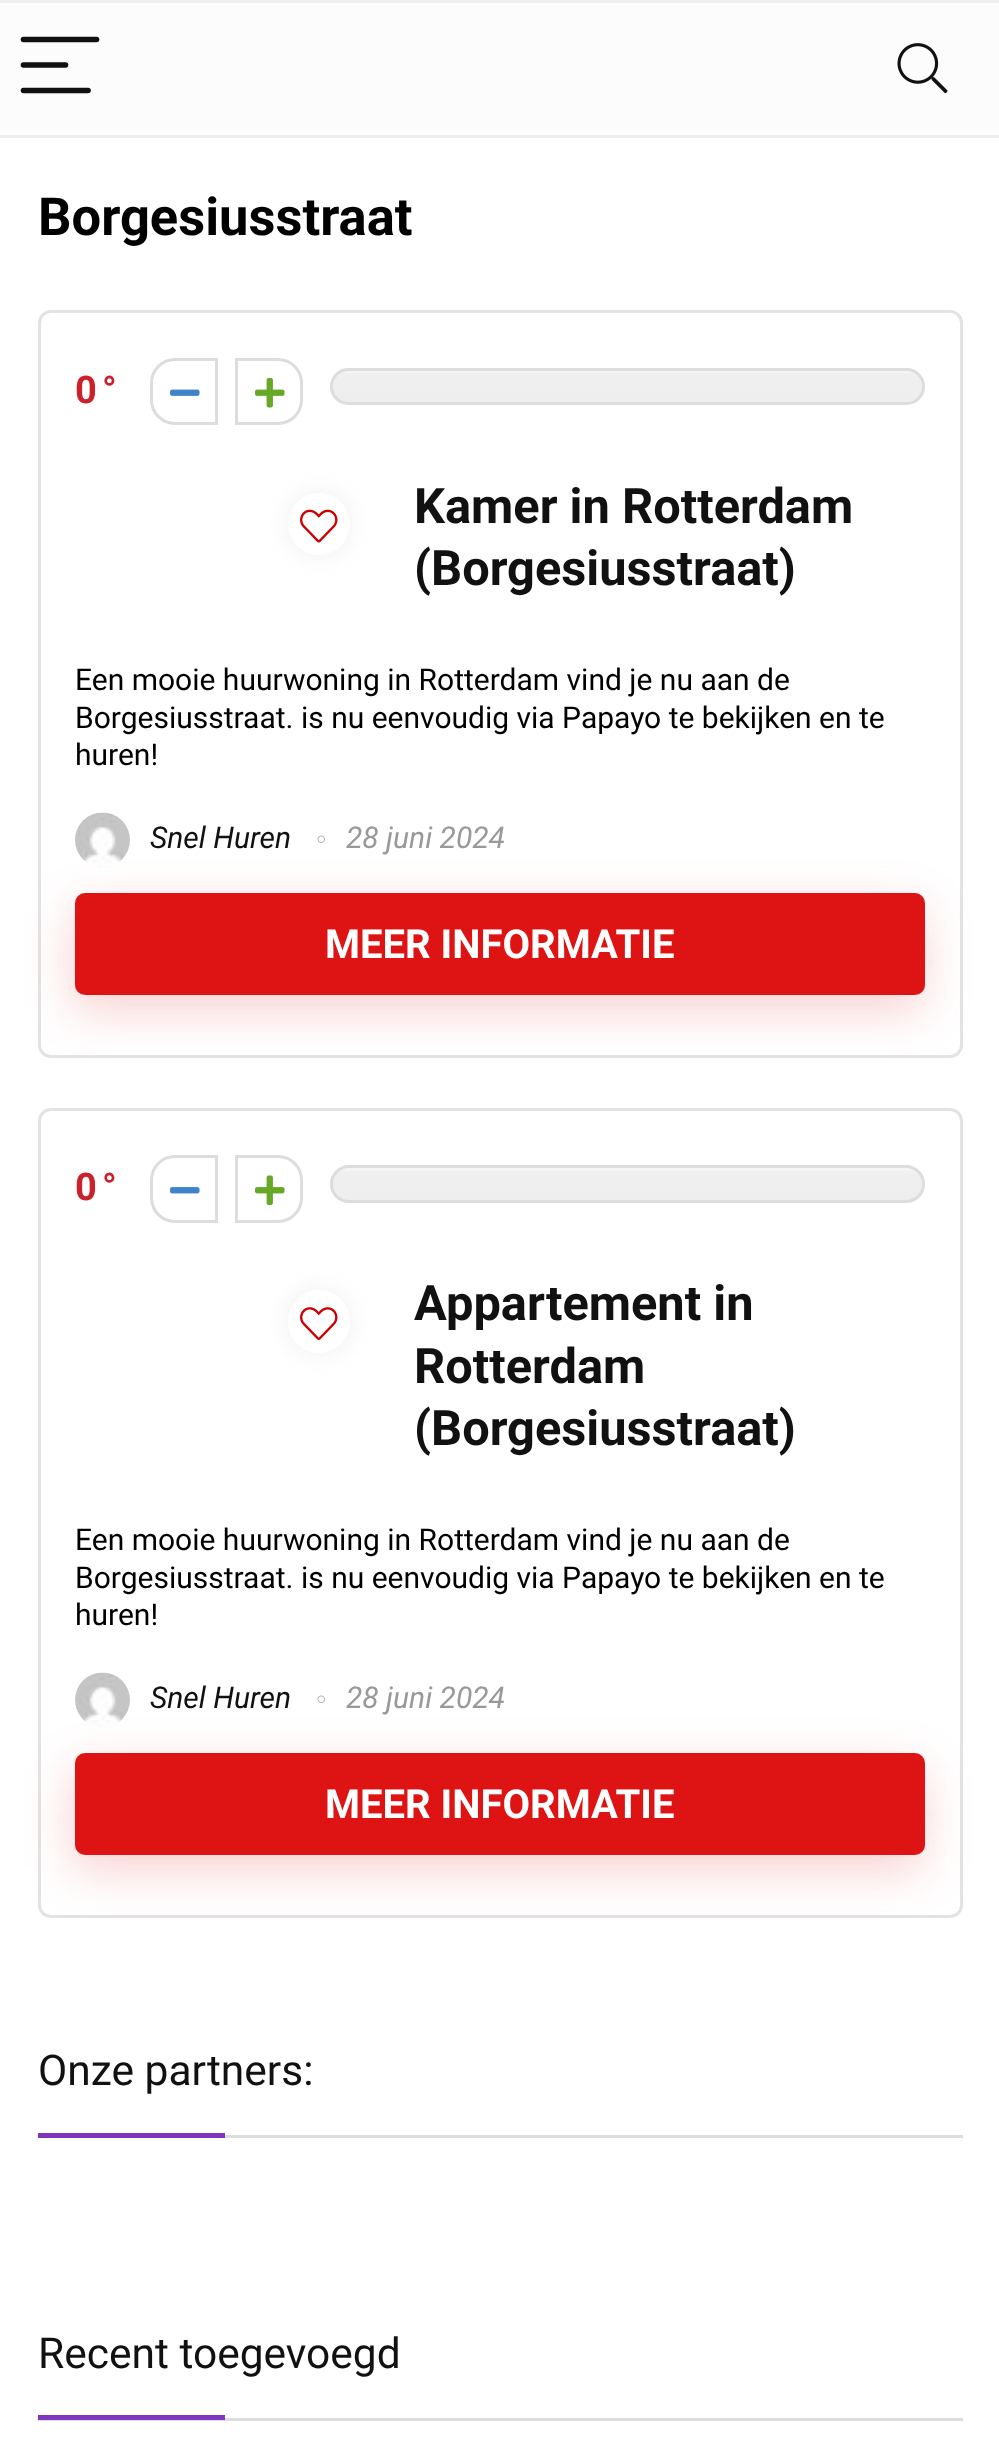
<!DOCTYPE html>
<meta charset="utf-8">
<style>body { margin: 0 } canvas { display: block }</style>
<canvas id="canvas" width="999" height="2439"></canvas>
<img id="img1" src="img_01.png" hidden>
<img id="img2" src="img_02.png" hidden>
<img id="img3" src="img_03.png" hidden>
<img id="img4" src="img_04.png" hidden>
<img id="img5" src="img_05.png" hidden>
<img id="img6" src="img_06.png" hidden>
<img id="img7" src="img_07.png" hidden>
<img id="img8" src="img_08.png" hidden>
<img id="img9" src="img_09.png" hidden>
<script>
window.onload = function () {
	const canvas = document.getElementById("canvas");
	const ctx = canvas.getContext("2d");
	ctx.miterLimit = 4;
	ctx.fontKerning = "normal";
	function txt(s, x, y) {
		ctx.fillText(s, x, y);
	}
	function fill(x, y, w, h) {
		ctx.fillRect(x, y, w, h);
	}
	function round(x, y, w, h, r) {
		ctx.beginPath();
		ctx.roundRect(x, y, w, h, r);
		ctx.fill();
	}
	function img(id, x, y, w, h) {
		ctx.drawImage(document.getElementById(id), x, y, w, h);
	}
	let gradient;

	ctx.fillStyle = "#FFFFFF";
	fill(0, 0, 999, 2439);
	ctx.fillStyle = "#FCFCFC";
	fill(0, 3, 999, 132);
	ctx.fillStyle = "#EEEEEE";
	fill(0, 0, 999, 3);
	fill(0, 135, 999, 3);
	ctx.beginPath();
	ctx.moveTo(23.5, 39.5);
	ctx.lineTo(96.5, 39.5);
	ctx.strokeStyle = "#111111";
	ctx.lineWidth = 5.6;
	ctx.lineCap = "round";
	ctx.stroke();
	ctx.beginPath();
	ctx.moveTo(23.5, 65);
	ctx.lineTo(65.5, 65);
	ctx.stroke();
	ctx.beginPath();
	ctx.moveTo(23.5, 90.5);
	ctx.lineTo(88, 90.5);
	ctx.stroke();
	img("img1", 897, 43, 51, 51);
	ctx.beginPath();
	ctx.roundRect(39.5, 311.5, 922, 745, 11.5);
	ctx.strokeStyle = "#E3E3E3";
	ctx.lineWidth = 3;
	ctx.stroke();
	ctx.beginPath();
	ctx.roundRect(151.5, 359.5, 65, 64, [23.5, 0, 0, 23.5]);
	ctx.strokeStyle = "#DCDDDE";
	ctx.stroke();
	img("img2", 170, 389, 30, 7);
	ctx.beginPath();
	ctx.roundRect(236.5, 359.5, 65, 64, [0, 23.5, 23.5, 0]);
	ctx.stroke();
	img("img3", 255, 378, 30, 30);
	ctx.save();
	ctx.beginPath();
	ctx.roundRect(330, 368, 595, 37, 18.5);
	ctx.clip();
	gradient = ctx.createLinearGradient(628, 370, 628, 403);
	gradient.addColorStop(0.08, "#F5F5F5");
	gradient.addColorStop(0.08, "#F0F0F0");
	gradient.addColorStop(1, "#EEEEEE");
	ctx.fillStyle = gradient;
	fill(330, 370, 595, 33);
	ctx.restore();
	ctx.beginPath();
	ctx.roundRect(331.5, 369.5, 592, 34, 17);
	ctx.strokeStyle = "#DDDDDD";
	ctx.stroke();
	ctx.fillStyle = "#EFEFEF";
	ctx.filter = "blur(12.5px)";
	ctx.beginPath();
	ctx.roundRect(288, 493, 62, 62, 31);
	ctx.fill();
	ctx.filter = "none";
	ctx.fillStyle = "#FFFFFF";
	ctx.beginPath();
	ctx.arc(319, 524, 31, 0, Math.PI * 2);
	ctx.fill();
	img("img4", 300, 509, 38, 34);
	img("img5", 75, 812, 55, 55);
	img("img6", 317, 835, 8, 8);
	ctx.fillStyle = "rgba(222, 20, 20, 0.2)";
	ctx.filter = "blur(24px)";
	ctx.beginPath();
	ctx.roundRect(73, 908, 850, 102, 10);
	ctx.fill();
	ctx.filter = "none";
	ctx.fillStyle = "#DE1414";
	round(75, 893, 850, 102, 10);
	ctx.beginPath();
	ctx.roundRect(39.5, 1109.5, 922, 807, 11.5);
	ctx.strokeStyle = "#E3E3E3";
	ctx.stroke();
	ctx.beginPath();
	ctx.roundRect(151.5, 1156.5, 65, 65, [23.5, 0, 0, 23.5]);
	ctx.strokeStyle = "#DCDDDE";
	ctx.stroke();
	img("img7", 170, 1187, 30, 7);
	ctx.beginPath();
	ctx.roundRect(236.5, 1156.5, 65, 65, [0, 23.5, 23.5, 0]);
	ctx.stroke();
	img("img8", 255, 1175, 30, 30);
	ctx.save();
	ctx.beginPath();
	ctx.roundRect(330, 1165, 595, 38, 19);
	ctx.clip();
	gradient = ctx.createLinearGradient(628, 1168, 628, 1200);
	gradient.addColorStop(0.08, "#F5F5F5");
	gradient.addColorStop(0.08, "#F0F0F0");
	gradient.addColorStop(1, "#EEEEEE");
	ctx.fillStyle = gradient;
	fill(330, 1168, 595, 32);
	ctx.restore();
	ctx.beginPath();
	ctx.roundRect(331.5, 1166.5, 592, 35, 17.5);
	ctx.strokeStyle = "#DDDDDD";
	ctx.stroke();
	ctx.fillStyle = "#EFEFEF";
	ctx.filter = "blur(12.5px)";
	ctx.beginPath();
	ctx.roundRect(288, 1290, 62, 63, 31);
	ctx.fill();
	ctx.filter = "none";
	ctx.fillStyle = "#FFFFFF";
	round(288, 1290, 62, 63, 31);
	img("img9", 300, 1307, 38, 33);
	img("img5", 75, 1672, 55, 55);
	img("img6", 317, 1695, 8, 8);
	ctx.fillStyle = "rgba(222, 20, 20, 0.2)";
	ctx.filter = "blur(24px)";
	ctx.beginPath();
	ctx.roundRect(73, 1768, 850, 102, 10);
	ctx.fill();
	ctx.filter = "none";
	ctx.fillStyle = "#DE1414";
	round(75, 1753, 850, 102, 10);
	ctx.fillStyle = "#DDDDDD";
	fill(225, 2135, 738, 3);
	ctx.fillStyle = "#8035BE";
	fill(38, 2133, 187, 5);
	ctx.fillStyle = "#DDDDDD";
	fill(38, 2418, 925, 3);
	ctx.fillStyle = "#8035BE";
	fill(38, 2415, 187, 5);
	ctx.font = "bold 52.5px Roboto";
	ctx.fillStyle = "#000000";
	txt("Borgesiusstraat", 38, 235);
	ctx.font = "bold 38px Roboto";
	ctx.fillStyle = "#CA212A";
	txt("0", 75, 403);
	txt("°", 102, 403);
	ctx.font = "bold 48.75px Roboto";
	ctx.fillStyle = "#111111";
	txt("Kamer in Rotterdam", 414, 523);
	txt("(Borgesiusstraat)", 414, 585);
	ctx.font = "30px Roboto";
	ctx.fillStyle = "#000000";
	txt("Een mooie huurwoning in Rotterdam vind je nu aan de", 75, 690);
	txt("Borgesiusstraat. is nu eenvoudig via Papayo te bekijken en te", 75, 728);
	txt("huren!", 75, 765);
	ctx.font = "italic 30px Roboto";
	ctx.fillStyle = "#111111";
	txt("Snel Huren", 150, 848);
	ctx.fillStyle = "#999999";
	txt("28 juni 2024", 346, 848);
	ctx.font = "bold 40px Roboto";
	ctx.fillStyle = "#FFFFFF";
	txt("MEER INFORMATIE", 325, 958);
	ctx.font = "bold 38px Roboto";
	ctx.fillStyle = "#CA212A";
	txt("0", 75, 1200);
	txt("°", 102, 1200);
	ctx.font = "bold 48.75px Roboto";
	ctx.fillStyle = "#111111";
	txt("Appartement in", 414, 1320);
	txt("Rotterdam", 414, 1383);
	txt("(Borgesiusstraat)", 414, 1445);
	ctx.font = "30px Roboto";
	ctx.fillStyle = "#000000";
	txt("Een mooie huurwoning in Rotterdam vind je nu aan de", 75, 1550);
	txt("Borgesiusstraat. is nu eenvoudig via Papayo te bekijken en te", 75, 1588);
	txt("huren!", 75, 1625);
	ctx.font = "italic 30px Roboto";
	ctx.fillStyle = "#111111";
	txt("Snel Huren", 150, 1708);
	ctx.fillStyle = "#999999";
	txt("28 juni 2024", 346, 1708);
	ctx.font = "bold 40px Roboto";
	ctx.fillStyle = "#FFFFFF";
	txt("MEER INFORMATIE", 325, 1818);
	ctx.font = "42.5px Roboto";
	ctx.fillStyle = "#111111";
	txt("Onze partners:", 38, 2085);
	txt("Recent toegevoegd", 38, 2368);
};
</script>
